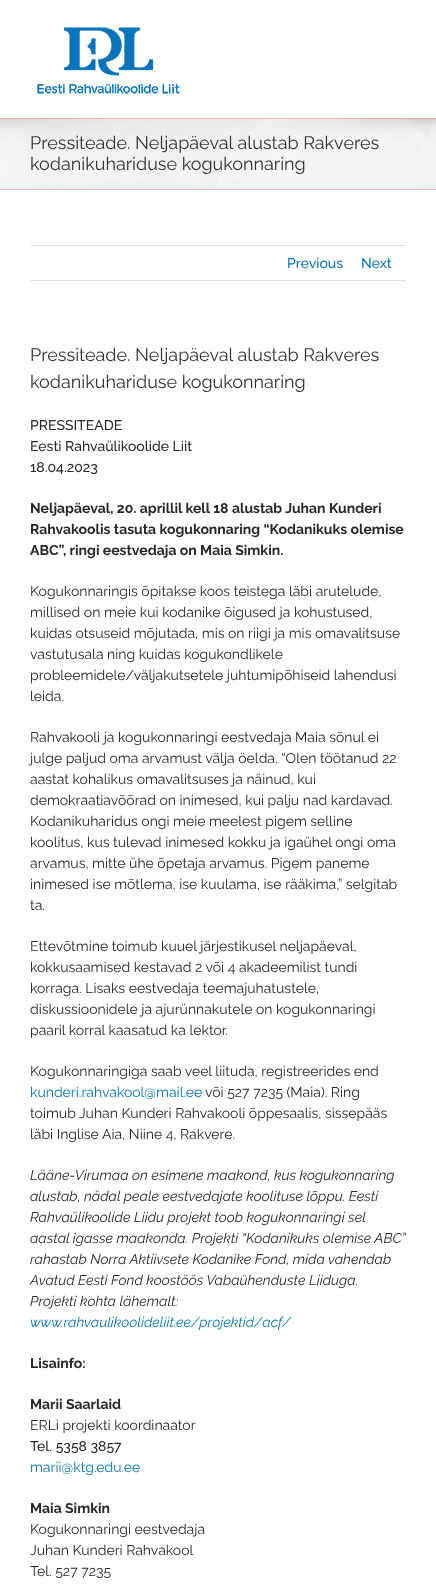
<!DOCTYPE html>
<meta charset="utf-8">
<style>body { margin: 0 } canvas { display: block }</style>
<canvas id="canvas" width="436" height="1594"></canvas>
<img id="img1" src="img_01.png" hidden>
<img id="img2" src="img_02.png" hidden>
<script>
window.onload = function () {
	const canvas = document.getElementById("canvas");
	const ctx = canvas.getContext("2d");
	ctx.miterLimit = 4;
	ctx.fontKerning = "normal";
	function txt(s, x, y) {
		ctx.fillText(s, x, y);
	}
	function fill(x, y, w, h) {
		ctx.fillRect(x, y, w, h);
	}
	function img(id, x, y, w, h) {
		ctx.drawImage(document.getElementById(id), x, y, w, h);
	}

	ctx.fillStyle = "#FFFFFF";
	fill(0, 0, 436, 1594);
	img("img1", 37, 27, 143, 67);
	ctx.fillStyle = "#F6F6F6";
	fill(0, 118, 436, 72);
	img("img2", 0, 118, 436, 72);
	ctx.fillStyle = "rgba(244, 123, 115, 0.46)";
	fill(0, 118, 436, 1);
	fill(0, 189, 436, 1);
	ctx.fillStyle = "#E0DEDE";
	fill(30, 245, 376, 1);
	fill(30, 280, 376, 1);
	ctx.font = "18px Raleway";
	ctx.fillStyle = "#333333";
	txt("Pressiteade. Neljapäeval alustab Rakveres", 30, 149);
	txt("kodanikuhariduse kogukonnaring", 30, 170);
	ctx.font = "500 14px Raleway";
	ctx.fillStyle = "#0974BA";
	txt("Previous", 287, 268);
	txt("Next", 361, 268);
	ctx.font = "18px Raleway";
	ctx.fillStyle = "#333333";
	txt("Pressiteade. Neljapäeval alustab Rakveres", 30, 361);
	txt("kodanikuhariduse kogukonnaring", 30, 388);
	ctx.font = "500 14px Raleway";
	ctx.fillStyle = "#282828";
	txt("PRESSITEADE", 30, 430);
	txt("Eesti Rahvaülikoolide Liit", 30, 451);
	txt("18.04.2023", 30, 472);
	ctx.font = "bold 14px Raleway";
	txt("Neljapäeval, 20. aprillil kell 18 alustab Juhan Kunderi", 30, 513);
	txt("Rahvakoolis tasuta kogukonnaring “Kodanikuks olemise", 30, 534);
	txt("ABC”, ringi eestvedaja on Maia Simkin.", 30, 555);
	ctx.font = "14px Raleway";
	txt("Kogukonnaringis õpitakse koos teistega läbi arutelude,", 30, 596);
	txt("millised on meie kui kodanike õigused ja kohustused,", 30, 617);
	txt("kuidas otsuseid mõjutada, mis on riigi ja mis omavalitsuse", 30, 638);
	txt("vastutusala ning kuidas kogukondlikele", 30, 659);
	txt("probleemidele/väljakutsetele juhtumipõhiseid lahendusi", 30, 680);
	txt("leida.", 30, 701);
	txt("Rahvakooli ja kogukonnaringi eestvedaja Maia sõnul ei", 30, 742);
	txt("julge paljud oma arvamust välja öelda. “Olen töötanud 22", 30, 763);
	txt("aastat kohalikus omavalitsuses ja näinud, kui", 30, 784);
	txt("demokraatiavõõrad on inimesed, kui palju nad kardavad.", 30, 805);
	txt("Kodanikuharidus ongi meie meelest pigem selline", 30, 826);
	txt("koolitus, kus tulevad inimesed kokku ja igaühel ongi oma", 30, 847);
	txt("arvamus, mitte ühe õpetaja arvamus. Pigem paneme", 30, 868);
	txt("inimesed ise mõtlema, ise kuulama, ise rääkima,” selgitab", 30, 889);
	txt("ta.", 30, 910);
	txt("Ettevõtmine toimub kuuel järjestikusel neljapäeval,", 30, 951);
	txt("kokkusaamised kestavad 2 või 4 akadeemilist tundi", 30, 972);
	txt("korraga. Lisaks eestvedaja teemajuhatustele,", 30, 993);
	txt("diskussioonidele ja ajurünnakutele on kogukonnaringi", 30, 1014);
	txt("paaril korral kaasatud ka lektor.", 30, 1035);
	txt("Kogukonnaringiga saab veel liituda, registreerides end", 30, 1076);
	ctx.fillStyle = "#0974BA";
	txt("kunderi.rahvakool@mail.ee", 30, 1097);
	ctx.fillStyle = "#282828";
	txt("või 527 7235 (Maia). Ring", 205, 1097);
	txt("toimub Juhan Kunderi Rahvakooli õppesaalis, sissepääs", 30, 1118);
	txt("läbi Inglise Aia, Niine 4, Rakvere.", 30, 1139);
	ctx.font = "italic 14px Raleway";
	txt("Lääne-Virumaa on esimene maakond, kus kogukonnaring", 30, 1180);
	txt("alustab, nädal peale eestvedajate koolituse lõppu. Eesti", 30, 1201);
	txt("Rahvaülikoolide Liidu projekt toob kogukonnaringi sel", 30, 1222);
	txt("aastal igasse maakonda. Projekti “Kodanikuks olemise ABC”", 30, 1243);
	txt("rahastab Norra Aktiivsete Kodanike Fond, mida vahendab", 30, 1264);
	txt("Avatud Eesti Fond koostöös Vabaühenduste Liiduga.", 30, 1285);
	txt("Projekti kohta lähemalt:", 30, 1306);
	ctx.fillStyle = "#0974BA";
	txt("www.rahvaulikoolideliit.ee/projektid/acf/", 30, 1327);
	ctx.font = "bold 14px Raleway";
	ctx.fillStyle = "#282828";
	txt("Lisainfo:", 30, 1368);
	txt("Marii Saarlaid", 30, 1409);
	ctx.font = "14px Raleway";
	txt("ERLi projekti koordinaator", 30, 1430);
	ctx.font = "500 14px Raleway";
	txt("Tel. 5358 3857", 30, 1451);
	ctx.font = "14px Raleway";
	ctx.fillStyle = "#0974BA";
	txt("marii@ktg.edu.ee", 30, 1472);
	ctx.font = "bold 14px Raleway";
	ctx.fillStyle = "#282828";
	txt("Maia Simkin", 30, 1513);
	ctx.font = "14px Raleway";
	txt("Kogukonnaringi eestvedaja", 30, 1534);
	txt("Juhan Kunderi Rahvakool", 30, 1555);
	txt("Tel. 527 7235", 30, 1576);
};
</script>
